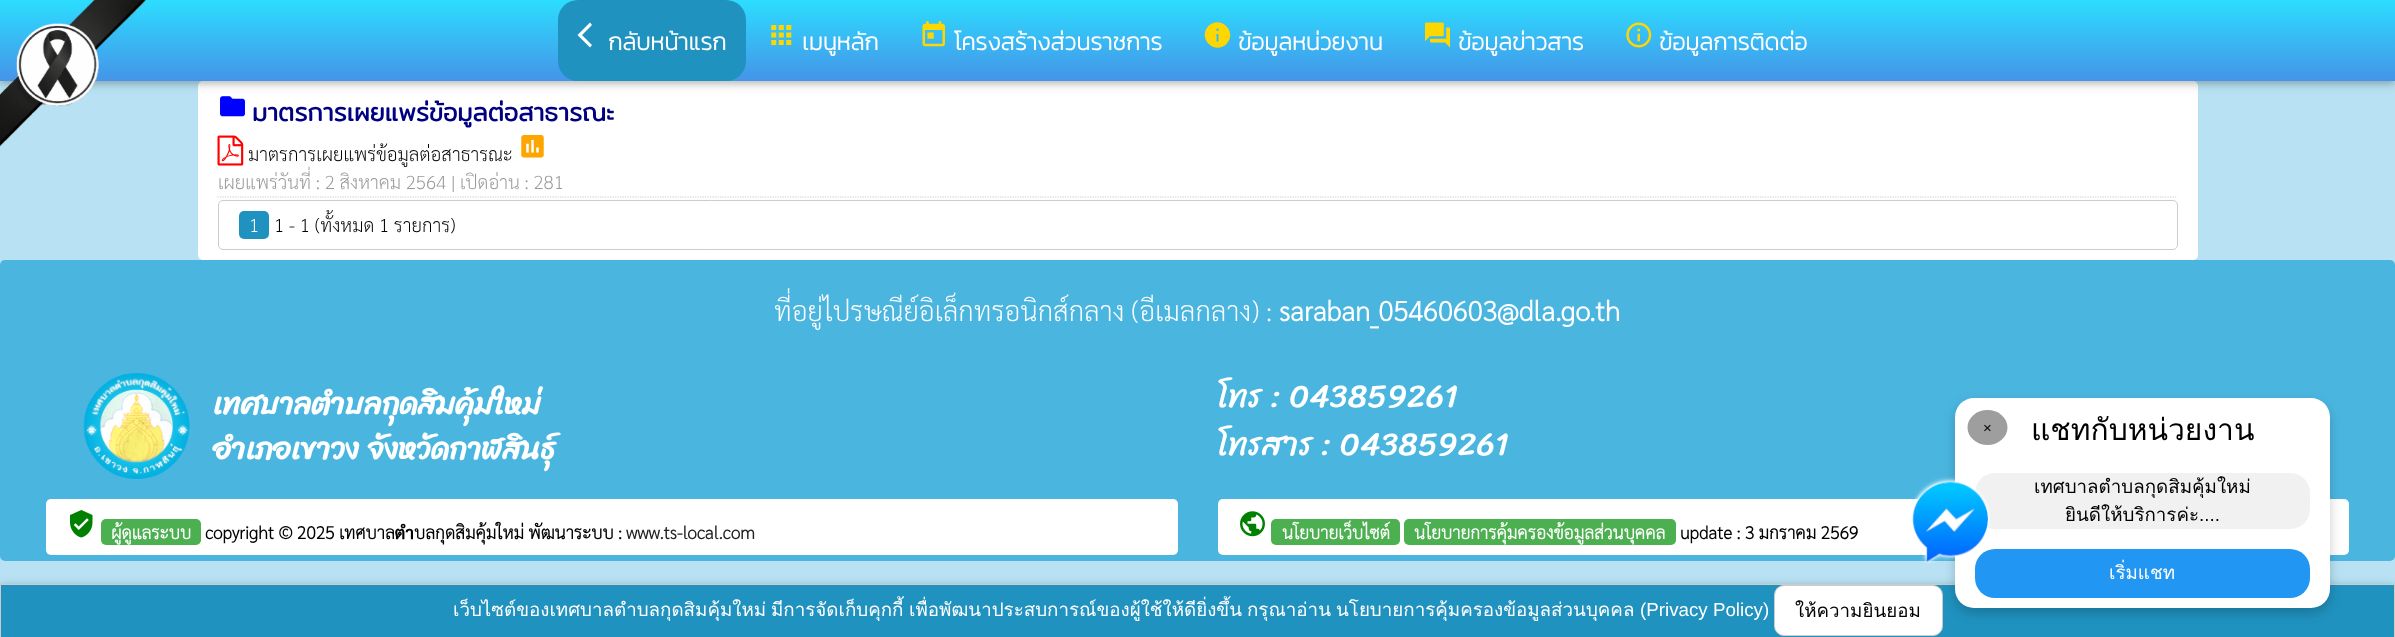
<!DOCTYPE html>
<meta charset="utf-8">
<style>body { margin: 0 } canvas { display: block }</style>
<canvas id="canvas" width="2395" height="637"></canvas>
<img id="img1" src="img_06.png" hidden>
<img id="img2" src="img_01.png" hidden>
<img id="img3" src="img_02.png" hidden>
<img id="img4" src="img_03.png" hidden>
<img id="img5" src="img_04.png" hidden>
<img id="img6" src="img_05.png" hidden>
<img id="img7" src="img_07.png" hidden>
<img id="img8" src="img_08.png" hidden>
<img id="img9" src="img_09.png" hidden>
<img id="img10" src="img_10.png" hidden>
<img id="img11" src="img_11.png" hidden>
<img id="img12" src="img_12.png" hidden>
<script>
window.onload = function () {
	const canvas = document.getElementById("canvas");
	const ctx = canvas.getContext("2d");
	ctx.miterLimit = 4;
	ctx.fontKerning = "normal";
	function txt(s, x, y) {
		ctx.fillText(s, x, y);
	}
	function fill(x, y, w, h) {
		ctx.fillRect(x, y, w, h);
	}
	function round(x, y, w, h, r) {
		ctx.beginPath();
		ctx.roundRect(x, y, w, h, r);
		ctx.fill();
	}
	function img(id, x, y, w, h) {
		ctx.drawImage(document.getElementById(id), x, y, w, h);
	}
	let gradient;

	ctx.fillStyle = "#B8E2F3";
	fill(0, 0, 2395, 637);
	ctx.fillStyle = "#FFFFFF";
	round(198, 81, 2000, 179, 5);
	img("img1", 220, 96, 25, 21);
	ctx.fillStyle = "rgba(0, 0, 0, 0.12)";
	ctx.filter = "blur(6px)";
	ctx.beginPath();
	ctx.rect(0, 3, 2395, 81);
	ctx.fill();
	ctx.filter = "none";
	ctx.fillStyle = "rgba(0, 0, 0, 0.16)";
	ctx.filter = "blur(3px)";
	ctx.beginPath();
	ctx.rect(0, 3, 2395, 81);
	ctx.fill();
	ctx.filter = "none";
	gradient = ctx.createLinearGradient(1198, 0, 1198, 81);
	gradient.addColorStop(0, "#2CDDFF");
	gradient.addColorStop(1, "#4594E8");
	ctx.fillStyle = gradient;
	fill(0, 0, 2395, 81);
	img("img2", 0, 0, 146, 147);
	ctx.fillStyle = "#2092BF";
	round(558, 0, 188, 81, 20);
	ctx.fillStyle = "#FFFFFF";
	ctx.beginPath();
	ctx.moveTo(592, 25);
	ctx.lineTo(582, 35);
	ctx.lineTo(592, 45);
	ctx.lineTo(590, 47.5);
	ctx.lineTo(577.5, 35);
	ctx.lineTo(590, 22.5);
	ctx.closePath();
	ctx.fill();
	img("img3", 771, 25, 21, 20);
	img("img4", 922, 21, 23, 26);
	ctx.fillStyle = "#FFD700";
	ctx.beginPath();
	ctx.moveTo(1218.5, 31);
	ctx.lineTo(1218.5, 28.5);
	ctx.lineTo(1216.5, 28.5);
	ctx.lineTo(1216.5, 31);
	ctx.closePath();
	ctx.moveTo(1218.5, 41.5);
	ctx.lineTo(1218.5, 34);
	ctx.lineTo(1216.5, 34);
	ctx.lineTo(1216.5, 41.5);
	ctx.closePath();
	ctx.moveTo(1208.5, 26);
	ctx.bezierCurveTo(1220.5, 14.5, 1238, 32, 1226.5, 44);
	ctx.bezierCurveTo(1214.5, 55.5, 1197, 38, 1208.5, 26);
	ctx.closePath();
	ctx.fill();
	img("img5", 1425, 22, 25, 26);
	img("img6", 1626, 22, 26, 26);
	img("img7", 217, 135, 27, 31);
	img("img8", 521, 135, 23, 23);
	ctx.beginPath();
	ctx.moveTo(217.5, 197);
	ctx.lineTo(2177.5, 197);
	ctx.strokeStyle = "#CCCCCC";
	ctx.lineWidth = 1.2;
	ctx.setLineDash([1.25, 1.25]);
	ctx.stroke();
	ctx.beginPath();
	ctx.roundRect(218.5, 200.5, 1959, 49, 4.5);
	ctx.lineWidth = 1;
	ctx.setLineDash([]);
	ctx.stroke();
	ctx.fillStyle = "#2092BF";
	round(239, 211, 30, 28, 5);
	ctx.fillStyle = "#4AB6E0";
	round(0, 260, 2395, 301, 5);
	img("img9", 83, 373, 107, 106);
	ctx.fillStyle = "#FFFFFF";
	round(46, 499, 1132, 56, 5);
	img("img10", 70, 510, 23, 28);
	ctx.fillStyle = "#4CAF50";
	round(101, 519, 100, 26, 5);
	ctx.fillStyle = "#FFFFFF";
	round(1218, 499, 1131, 56, 5);
	img("img11", 1240, 511, 25, 26);
	ctx.fillStyle = "#4CAF50";
	round(1271, 519, 129, 26, 5);
	round(1404, 519, 272, 26, 5);
	ctx.fillStyle = "rgba(0, 0, 0, 0.12)";
	ctx.filter = "blur(6px)";
	ctx.beginPath();
	ctx.rect(0, 586, 2395, 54);
	ctx.fill();
	ctx.filter = "none";
	ctx.fillStyle = "rgba(0, 0, 0, 0.16)";
	ctx.filter = "blur(3px)";
	ctx.beginPath();
	ctx.rect(0, 586, 2395, 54);
	ctx.fill();
	ctx.filter = "none";
	ctx.fillStyle = "#2092BF";
	ctx.beginPath();
	ctx.rect(0.5, 584.5, 2394, 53);
	ctx.fill();
	ctx.stroke();
	ctx.fillStyle = "#FFFFFF";
	ctx.beginPath();
	ctx.roundRect(1774.5, 585.5, 168, 50, 9.5);
	ctx.fill();
	ctx.stroke();
	ctx.fillStyle = "rgba(0, 0, 0, 0.2)";
	ctx.filter = "blur(6px)";
	ctx.beginPath();
	ctx.roundRect(1955, 403, 375, 210, 19);
	ctx.fill();
	ctx.filter = "none";
	ctx.fillStyle = "#FFFFFF";
	round(1955, 398, 375, 210, 19);
	ctx.fillStyle = "#9E9E9E";
	ctx.beginPath();
	ctx.ellipse(1987.5, 427.5, 20, 17.5, 0, 0, Math.PI * 2);
	ctx.fill();
	ctx.fillStyle = "#F1F1F1";
	round(1975, 473, 335, 56, 20);
	ctx.fillStyle = "#2196F3";
	round(1975, 549, 335, 49, 20);
	img("img12", 1912, 476, 78, 88);
	ctx.font = "bold 23.75px Kanit";
	ctx.fillStyle = "#FFFFFF";
	txt("กลับหน้าแรก", 608, 50);
	txt("เมนูหลัก", 802, 50);
	txt("โครงสร้างส่วนราชการ", 954, 50);
	txt("ข้อมูลหน่วยงาน", 1238, 50);
	txt("ข้อมูลข่าวสาร", 1458, 50);
	txt("ข้อมูลการติดต่อ", 1659, 50);
	ctx.font = "bold 25px Mitr";
	ctx.fillStyle = "#000080";
	txt("มาตรการเผยแพร่ข้อมูลต่อสาธารณะ", 252, 121);
	ctx.font = "200 18.75px Sarabun";
	ctx.fillStyle = "#000000";
	txt("มาตรการเผยแพร่ข้อมูลต่อสาธารณะ", 248, 161);
	ctx.fillStyle = "#999999";
	txt("เผยแพร่วันที่ : 2 สิงหาคม 2564 | เปิดอ่าน : 281", 218, 189);
	ctx.fillStyle = "#FFFFFF";
	txt("1", 249, 232);
	ctx.fillStyle = "#000000";
	txt("1 - 1 (ทั้งหมด 1 รายการ)", 274, 232);
	ctx.font = "200 27.5px Sarabun";
	ctx.fillStyle = "#FFFFFF";
	txt("ที่อยู่ไปรษณีย์อิเล็กทรอนิกส์กลาง (อีเมลกลาง) :", 774, 321);
	ctx.font = "bold 27.5px Sarabun";
	txt("saraban_05460603@dla.go.th", 1279, 321);
	ctx.font = "bold 30px Sriracha";
	txt("เทศบาลตำบลกุดสิมคุ้มใหม่", 213, 414);
	txt("อำเภอเขาวง จังหวัดกาฬสินธุ์", 213, 459);
	ctx.font = "32.5px Sriracha";
	txt("โทร : 043859261", 1217, 407);
	txt("โทรสาร : 043859261", 1217, 455);
	ctx.font = "bold 17.5px Sarabun";
	txt("ผู้ดูแลระบบ", 111, 539);
	ctx.fillStyle = "#000000";
	txt("copyright © 2025 เทศบาลตำบลกุดสิมคุ้มใหม่ พัฒนาระบบ :", 205, 539);
	ctx.fillStyle = "#222222";
	txt("www.ts-local.com", 626, 539);
	ctx.fillStyle = "#FFFFFF";
	txt("นโยบายเว็บไซต์", 1282, 539);
	txt("นโยบายการคุ้มครองข้อมูลส่วนบุคคล", 1414, 539);
	ctx.fillStyle = "#000000";
	txt("update : 3 มกราคม 2569", 1680, 539);
	ctx.font = "15px Liberation Sans";
	txt("×", 1983, 433);
	ctx.font = "30px Loma";
	txt("แชทกับหน่วยงาน", 2031, 440);
	ctx.font = "18.75px Loma";
	txt("เทศบาลตำบลกุดสิมคุ้มใหม่", 2034, 493);
	txt("ยินดีให้บริการค่ะ", 2065, 521);
	ctx.font = "18.75px Liberation Sans";
	txt("....", 2199, 521);
	ctx.font = "18.75px Loma";
	ctx.fillStyle = "#FFFFFF";
	txt("เริ่มแชท", 2109, 579);
	txt("เว็บไซต์ของเทศบาลตำบลกุดสิมคุ้มใหม่", 453, 616);
	txt("มีการจัดเก็บคุกกี้", 771, 616);
	txt("เพื่อพัฒนาประสบการณ์ของผู้ใช้ให้ดียิ่งขึ้น", 909, 616);
	txt("กรุณาอ่าน", 1247, 616);
	txt("นโยบายการคุ้มครองข้อมูลส่วนบุคคล", 1336, 616);
	ctx.font = "18.75px Liberation Sans";
	txt("(Privacy Policy)", 1640, 616);
	ctx.font = "18.75px Loma";
	ctx.fillStyle = "#000000";
	txt("ให้ความยินยอม", 1795, 617);
};
</script>
